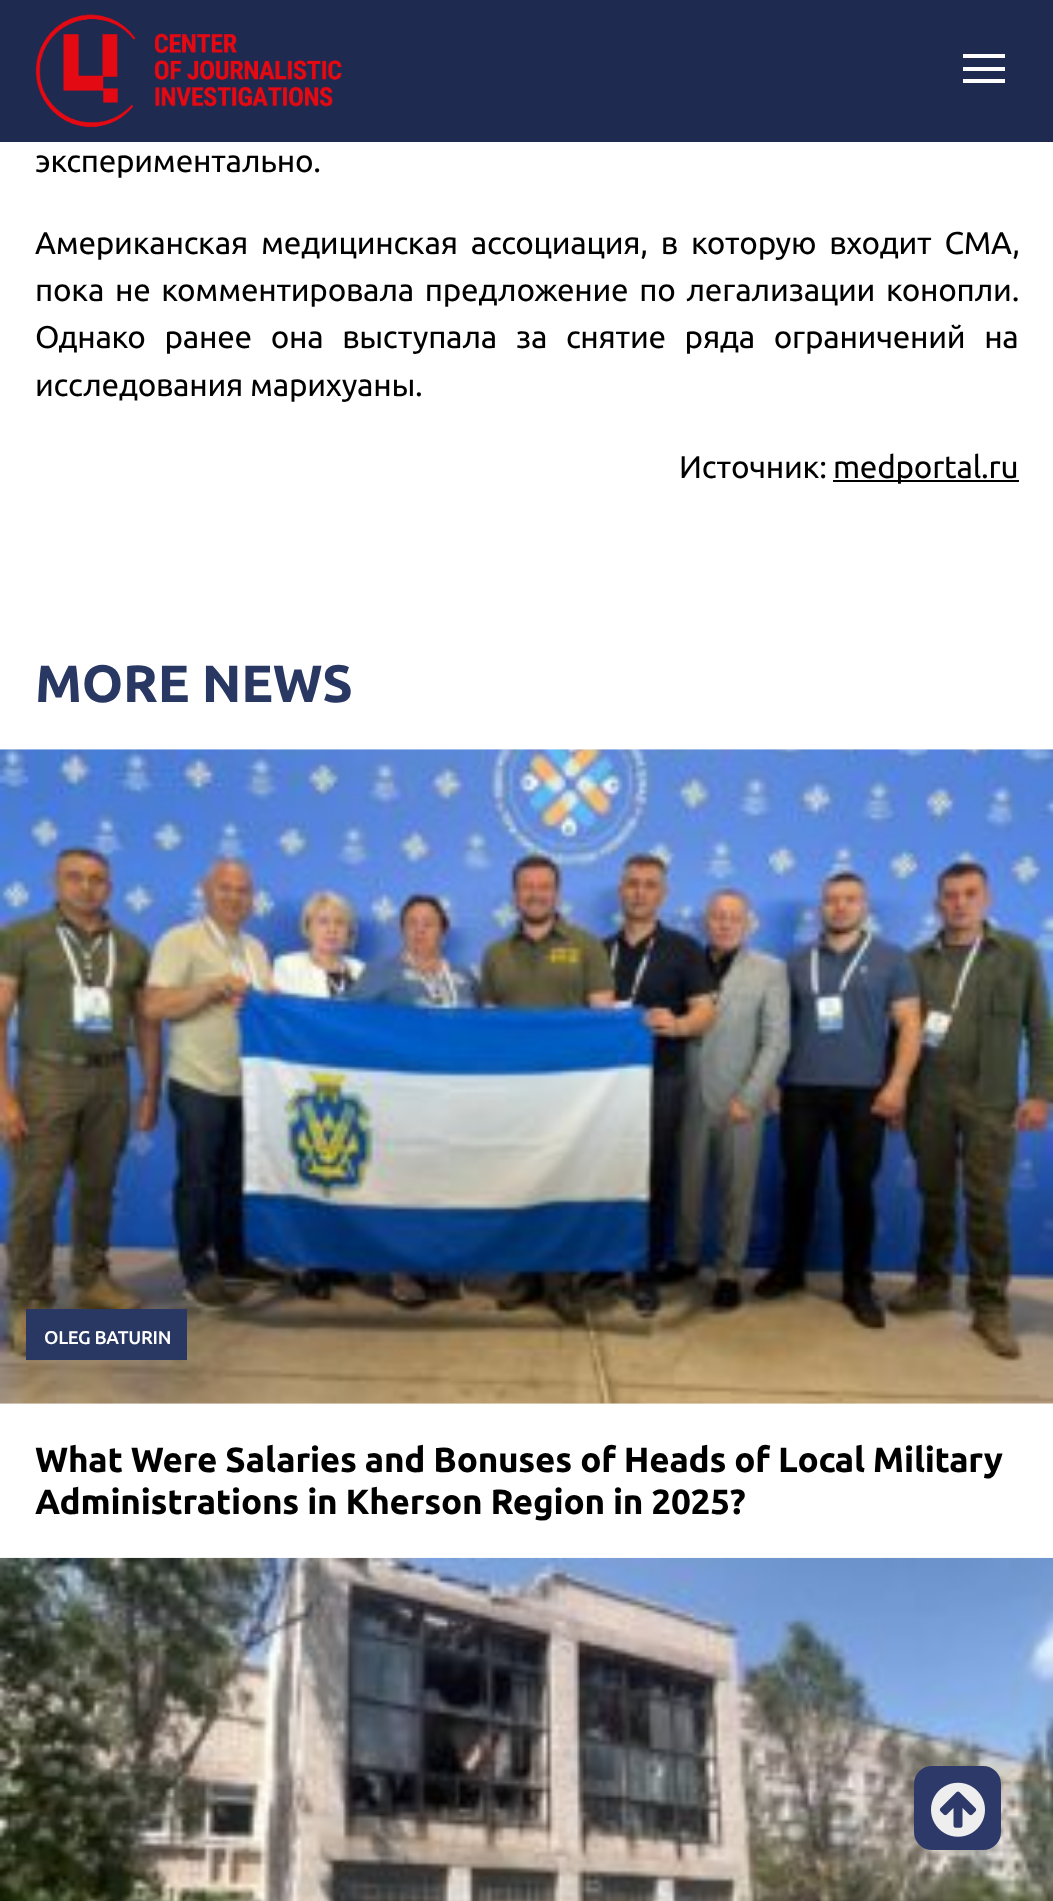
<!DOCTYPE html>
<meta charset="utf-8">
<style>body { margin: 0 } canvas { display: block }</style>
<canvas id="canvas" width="1053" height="1901"></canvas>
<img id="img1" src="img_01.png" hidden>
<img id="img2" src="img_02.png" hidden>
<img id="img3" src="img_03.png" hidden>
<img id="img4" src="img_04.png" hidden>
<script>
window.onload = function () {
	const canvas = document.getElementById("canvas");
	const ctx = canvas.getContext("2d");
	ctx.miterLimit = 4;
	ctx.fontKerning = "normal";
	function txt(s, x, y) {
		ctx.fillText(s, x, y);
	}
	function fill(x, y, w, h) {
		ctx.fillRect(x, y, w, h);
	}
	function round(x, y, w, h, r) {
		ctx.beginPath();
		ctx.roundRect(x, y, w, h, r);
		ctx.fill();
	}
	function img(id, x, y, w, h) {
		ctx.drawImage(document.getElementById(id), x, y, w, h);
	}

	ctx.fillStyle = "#FFFFFF";
	fill(0, 0, 1053, 1901);
	ctx.fillStyle = "#1F2A50";
	fill(0, 0, 1053, 142);
	img("img1", 35, 14, 307, 114);
	ctx.fillStyle = "#FFFFFF";
	fill(963, 54, 42, 4);
	fill(963, 67, 42, 4);
	fill(963, 79, 42, 4);
	ctx.fillStyle = "#000000";
	fill(833, 480, 186, 2);
	img("img2", 0, 749, 1053, 655);
	ctx.fillStyle = "#293863";
	fill(26, 1309, 161, 51);
	img("img3", 0, 1557, 1053, 344);
	ctx.fillStyle = "#2D3969";
	round(914, 1766, 87, 84, 18);
	img("img4", 931, 1782, 54, 55);
	ctx.letterSpacing = "-0.25px";
	ctx.font = "31.5px Ubuntu";
	ctx.fillStyle = "#000000";
	txt("экспериментально.", 35, 172);
	ctx.wordSpacing = "6px";
	txt("Американская медицинская ассоциация, в которую входит CMA,", 35, 254);
	ctx.wordSpacing = "3.75px";
	txt("пока не комментировала предложение по легализации конопли.", 35, 301);
	ctx.wordSpacing = "11.75px";
	txt("Однако ранее она выступала за снятие ряда ограничений на", 35, 348);
	ctx.wordSpacing = "0px";
	txt("исследования марихуаны.", 35, 396);
	txt("Источник:", 679, 478);
	txt("medportal.ru", 833, 478);
	ctx.font = "bold 52.5px Ubuntu";
	ctx.fillStyle = "#293863";
	txt("MORE NEWS", 35, 702);
	ctx.font = "500 18.5px Ubuntu";
	ctx.fillStyle = "#FFFFFF";
	txt("OLEG BATURIN", 44, 1344);
	ctx.font = "bold 35px Ubuntu";
	ctx.fillStyle = "#000000";
	txt("What Were Salaries and Bonuses of Heads of Local Military", 35, 1472);
	txt("Administrations in Kherson Region in 2025?", 35, 1514);
};
</script>
